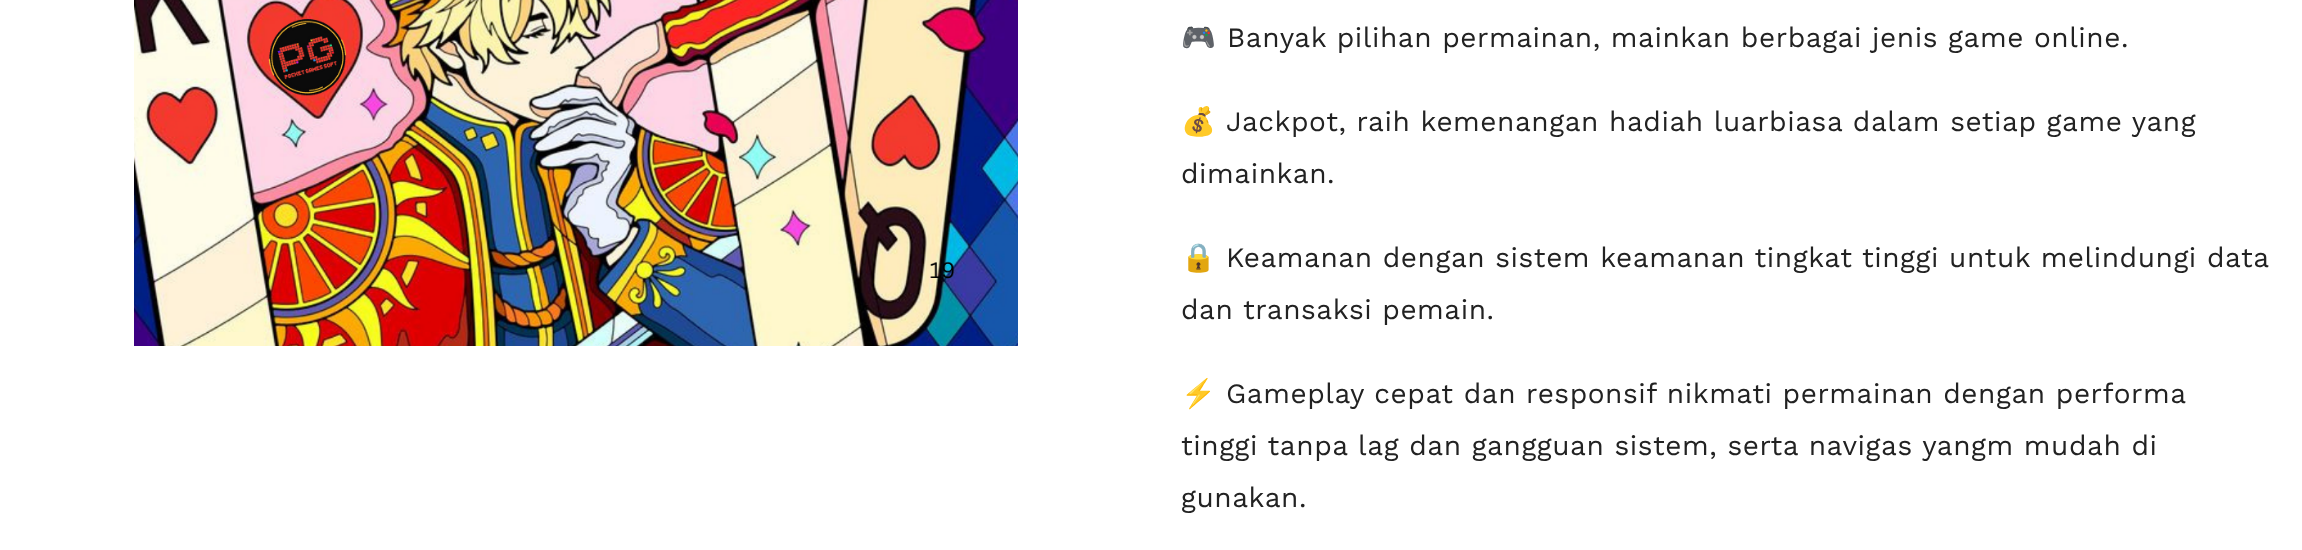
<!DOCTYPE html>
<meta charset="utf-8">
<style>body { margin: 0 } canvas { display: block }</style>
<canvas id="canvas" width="2302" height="550"></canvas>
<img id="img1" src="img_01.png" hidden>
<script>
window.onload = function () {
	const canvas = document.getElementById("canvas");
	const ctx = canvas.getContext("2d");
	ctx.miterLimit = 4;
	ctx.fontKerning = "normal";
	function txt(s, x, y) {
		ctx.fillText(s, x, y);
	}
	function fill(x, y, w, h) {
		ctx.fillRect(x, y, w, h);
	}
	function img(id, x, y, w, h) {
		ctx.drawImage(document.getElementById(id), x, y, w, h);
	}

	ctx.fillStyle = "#FFFFFF";
	fill(0, 0, 2302, 550);
	img("img1", 134, 0, 884, 346);
	ctx.letterSpacing = "0.55px";
	ctx.font = "28px Noto Color Emoji";
	ctx.fillStyle = "#222222";
	txt("🎮", 1181, 47);
	ctx.font = "28px Work Sans";
	txt("Banyak pilihan permainan, mainkan berbagai jenis game online.", 1227, 47);
	ctx.font = "28px Noto Color Emoji";
	txt("💰", 1181, 131);
	ctx.font = "28px Work Sans";
	txt("Jackpot, raih kemenangan hadiah luarbiasa dalam setiap game yang", 1226, 131);
	txt("dimainkan.", 1181, 183);
	ctx.font = "28px Noto Color Emoji";
	txt("🔒", 1181, 267);
	ctx.font = "28px Work Sans";
	txt("Keamanan dengan sistem keamanan tingkat tinggi untuk melindungi data", 1226, 267);
	txt("dan transaksi pemain.", 1181, 319);
	ctx.font = "28px Noto Color Emoji";
	txt("⚡", 1181, 403);
	ctx.font = "28px Work Sans";
	txt("Gameplay cepat dan responsif nikmati permainan dengan performa", 1226, 403);
	txt("tinggi tanpa lag dan gangguan sistem, serta navigas yangm mudah di", 1181, 455);
	txt("gunakan.", 1181, 507);
};
</script>
